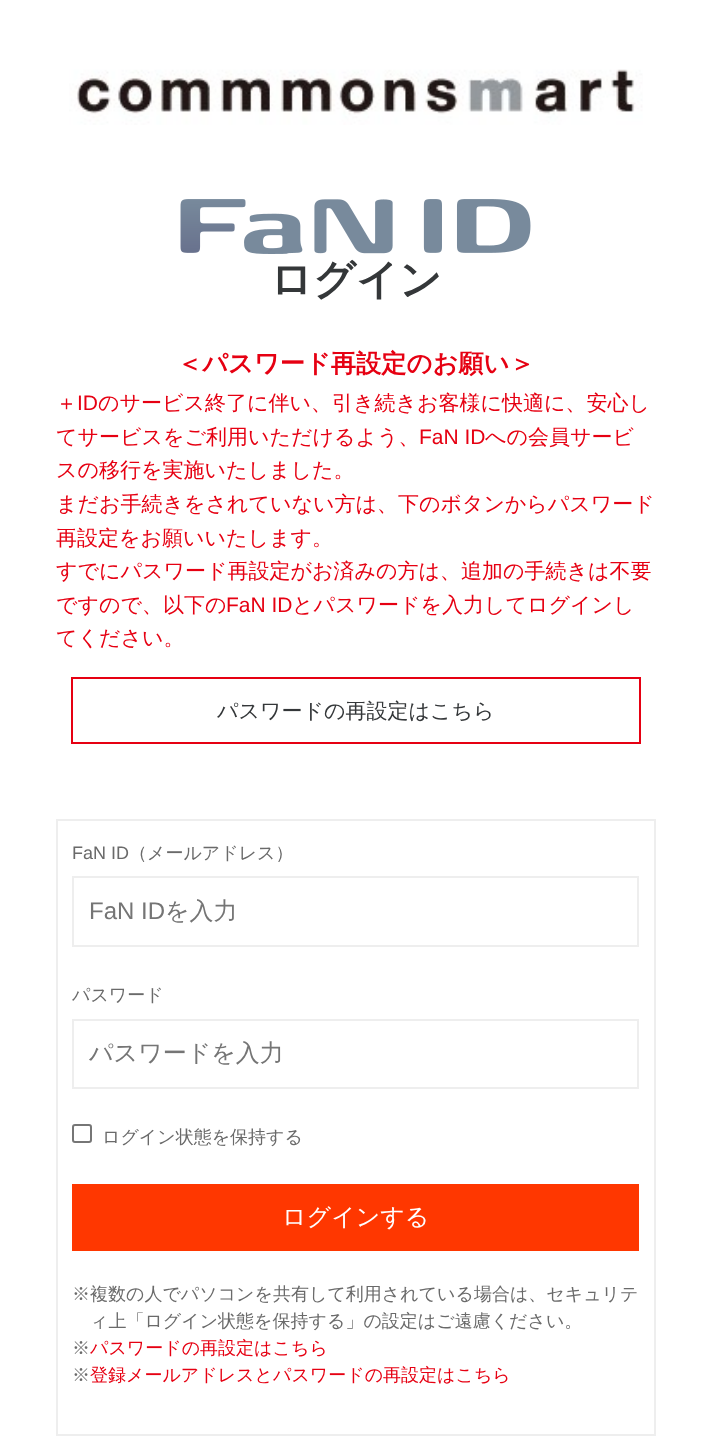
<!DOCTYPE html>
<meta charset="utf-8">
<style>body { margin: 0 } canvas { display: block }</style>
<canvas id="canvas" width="711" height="1455"></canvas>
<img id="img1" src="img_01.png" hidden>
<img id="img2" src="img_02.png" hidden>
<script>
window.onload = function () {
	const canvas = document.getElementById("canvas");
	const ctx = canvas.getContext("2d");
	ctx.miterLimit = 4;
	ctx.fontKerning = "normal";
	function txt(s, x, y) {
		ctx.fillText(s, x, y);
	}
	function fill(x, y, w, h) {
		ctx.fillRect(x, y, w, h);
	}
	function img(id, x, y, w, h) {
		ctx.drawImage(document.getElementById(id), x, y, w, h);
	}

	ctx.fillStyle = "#FFFFFF";
	fill(0, 0, 711, 1455);
	img("img1", 69, 69, 574, 56);
	img("img2", 180, 199, 351, 55);
	ctx.strokeStyle = "#E60012";
	ctx.lineWidth = 2;
	ctx.strokeRect(72, 678, 568, 65);
	ctx.strokeStyle = "#EEEEEE";
	ctx.strokeRect(57, 820, 598, 615);
	ctx.strokeRect(73, 877, 565, 69);
	ctx.strokeRect(73, 1020, 565, 68);
	ctx.beginPath();
	ctx.roundRect(73, 1125, 18, 17, 2);
	ctx.strokeStyle = "#767676";
	ctx.stroke();
	ctx.fillStyle = "#FF3700";
	fill(72, 1184, 567, 67);
	ctx.font = "bold 42px WenQuanYi Zen Hei";
	ctx.fillStyle = "#343739";
	txt("ログイン", 270, 294);
	ctx.font = "bold 25.25px WenQuanYi Zen Hei";
	ctx.fillStyle = "#E60012";
	txt("＜パスワード再設定のお願い＞", 177, 372);
	ctx.font = "500 21px WenQuanYi Zen Hei";
	txt("＋", 56, 410);
	ctx.font = "21px Liberation Sans";
	txt("ID", 77, 410);
	ctx.font = "500 21px WenQuanYi Zen Hei";
	txt("のサービス終了に伴い、引き続きお客様に快適に、安心し", 98, 410);
	txt("てサービスをご利用いただけるよう、", 56, 444);
	ctx.font = "21px Liberation Sans";
	txt("FaN ID", 419, 444);
	ctx.font = "500 21px WenQuanYi Zen Hei";
	txt("への会員サービ", 485, 444);
	txt("スの移行を実施いたしました。", 56, 477);
	txt("まだお手続きをされていない方は、下のボタンからパスワード", 56, 511);
	txt("再設定をお願いいたします。", 56, 545);
	txt("すでにパスワード再設定がお済みの方は、追加の手続きは不要", 56, 578);
	txt("ですので、以下の", 56, 612);
	ctx.font = "21px Liberation Sans";
	txt("FaN ID", 226, 612);
	ctx.font = "500 21px WenQuanYi Zen Hei";
	txt("とパスワードを入力してログインし", 292, 612);
	txt("てください。", 56, 645);
	ctx.fillStyle = "#343739";
	txt("パスワードの再設定はこちら", 217, 718);
	ctx.font = "18px Liberation Sans";
	ctx.fillStyle = "#6A6A6A";
	txt("FaN ID", 72, 859);
	ctx.font = "500 18px WenQuanYi Zen Hei";
	txt("（メールアドレス）", 129, 859);
	ctx.font = "24px Liberation Sans";
	ctx.fillStyle = "#757575";
	txt("FaN ID", 89, 919);
	ctx.font = "500 24px WenQuanYi Zen Hei";
	txt("を入力", 165, 919);
	ctx.font = "500 18px WenQuanYi Zen Hei";
	ctx.fillStyle = "#6A6A6A";
	txt("パスワード", 72, 1001);
	ctx.font = "500 24px WenQuanYi Zen Hei";
	ctx.fillStyle = "#757575";
	txt("パスワードを入力", 89, 1061);
	ctx.font = "500 18px WenQuanYi Zen Hei";
	ctx.fillStyle = "#6A6A6A";
	txt("ログイン状態を保持する", 102, 1143);
	ctx.font = "500 24px WenQuanYi Zen Hei";
	ctx.fillStyle = "#FFFFFF";
	txt("ログインする", 282, 1225);
	ctx.font = "500 18px WenQuanYi Zen Hei";
	ctx.fillStyle = "#6A6A6A";
	txt("※複数の人でパソコンを共有して利用されている場合は、セキュリテ", 72, 1300);
	txt("ィ上「ログイン状態を保持する」の設定はご遠慮ください。", 90, 1327);
	txt("※", 72, 1354);
	ctx.fillStyle = "#E60012";
	txt("パスワードの再設定はこちら", 90, 1354);
	ctx.fillStyle = "#6A6A6A";
	txt("※", 72, 1381);
	ctx.fillStyle = "#E60012";
	txt("登録メールアドレスとパスワードの再設定はこちら", 90, 1381);
};
</script>
